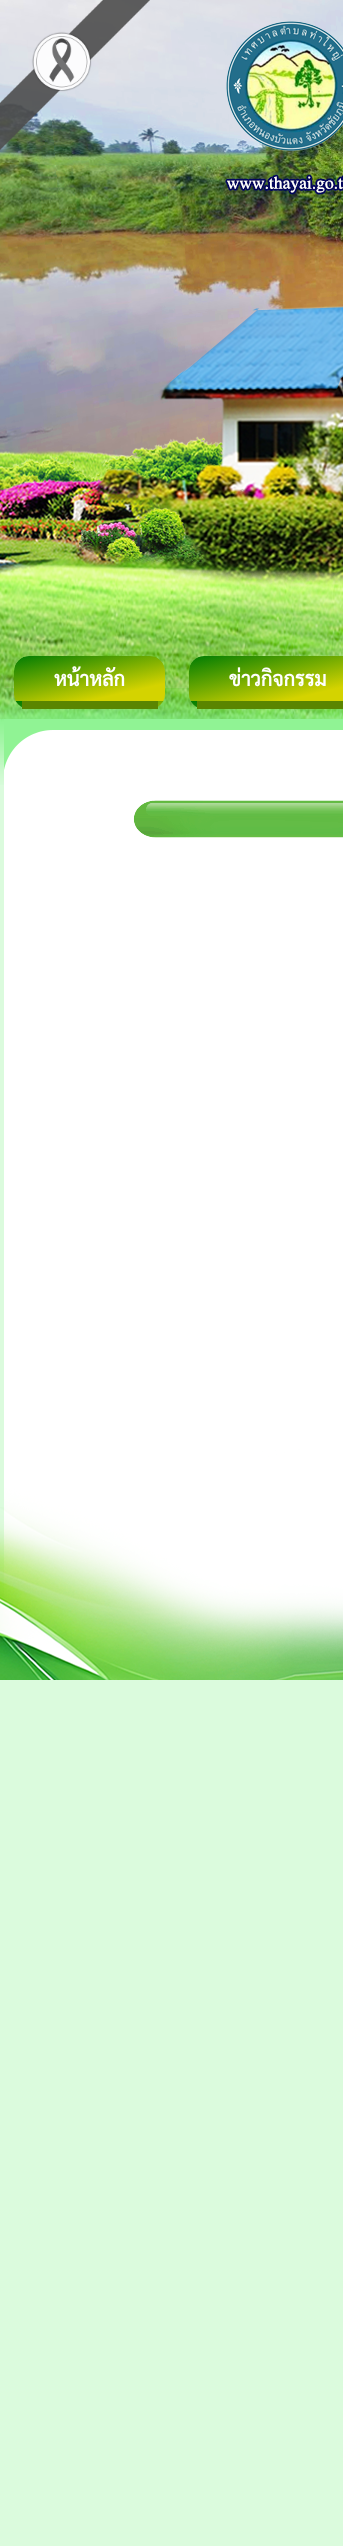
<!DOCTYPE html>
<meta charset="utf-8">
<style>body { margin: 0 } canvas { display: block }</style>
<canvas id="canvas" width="343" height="2546"></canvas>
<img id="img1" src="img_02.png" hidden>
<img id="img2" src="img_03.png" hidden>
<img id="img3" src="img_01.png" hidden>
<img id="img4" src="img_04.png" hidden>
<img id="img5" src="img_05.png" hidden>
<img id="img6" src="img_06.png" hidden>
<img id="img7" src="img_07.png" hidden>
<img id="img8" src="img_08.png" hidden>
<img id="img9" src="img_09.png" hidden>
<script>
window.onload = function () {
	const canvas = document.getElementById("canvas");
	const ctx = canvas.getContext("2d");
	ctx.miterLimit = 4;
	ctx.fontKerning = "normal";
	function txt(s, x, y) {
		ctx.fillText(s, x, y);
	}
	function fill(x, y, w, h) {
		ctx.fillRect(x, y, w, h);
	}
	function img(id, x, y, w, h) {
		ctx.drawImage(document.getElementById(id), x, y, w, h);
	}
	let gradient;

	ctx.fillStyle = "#DBFBDD";
	fill(0, 0, 343, 2546);
	img("img1", 0, 0, 4, 719);
	img("img2", 4, 0, 339, 719);
	img("img3", 0, 0, 150, 150);
	img("img4", 226, 21, 117, 130);
	ctx.save();
	ctx.beginPath();
	ctx.roundRect(14, 656, 151, 53, 15);
	ctx.clip();
	gradient = ctx.createLinearGradient(98, 716, 81, 641);
	gradient.addColorStop(0.22, "#D4D300");
	gradient.addColorStop(1, "#007C03");
	ctx.fillStyle = gradient;
	ctx.beginPath();
	ctx.roundRect(14, 656, 151, 45, [15, 15, 0, 0]);
	ctx.fill();
	gradient = ctx.createLinearGradient(98, 761, 81, 686);
	gradient.addColorStop(0.22, "#D4D300");
	gradient.addColorStop(1, "#007C03");
	ctx.fillStyle = gradient;
	fill(14, 701, 151, 7);
	ctx.restore();
	ctx.fillStyle = "#5A8500";
	fill(22, 701, 136, 8);
	ctx.save();
	ctx.beginPath();
	ctx.roundRect(189, 656, 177, 53, 15);
	ctx.clip();
	gradient = ctx.createLinearGradient(287, 719, 268, 638);
	gradient.addColorStop(0.22, "#D4D300");
	gradient.addColorStop(1, "#007C03");
	ctx.fillStyle = gradient;
	ctx.beginPath();
	ctx.moveTo(204, 656);
	ctx.lineTo(343, 656);
	ctx.bezierCurveTo(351.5, 656, 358, 662.5, 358, 671);
	ctx.lineTo(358, 701);
	ctx.lineTo(189, 701);
	ctx.lineTo(189, 671);
	ctx.bezierCurveTo(189, 662.5, 195.5, 656, 204, 656);
	ctx.closePath();
	ctx.fill();
	gradient = ctx.createLinearGradient(287, 764, 268, 683);
	gradient.addColorStop(0.22, "#D4D300");
	gradient.addColorStop(1, "#007C03");
	ctx.fillStyle = gradient;
	fill(189, 701, 8, 7);
	ctx.restore();
	fill(197, 701, 146, 8);
	img("img5", 0, 719, 4, 66);
	img("img6", 4, 719, 339, 77);
	ctx.fillStyle = "#FFFFFF";
	fill(4, 796, 339, 563);
	img("img7", 133, 800, 210, 38);
	img("img8", 0, 1507, 4, 173);
	img("img9", 4, 1359, 339, 321);
	ctx.font = "bold 20px Sarabun";
	txt("หน้าหลัก", 54, 686);
	txt("ข่าวกิจกรรม", 229, 686);
};
</script>
